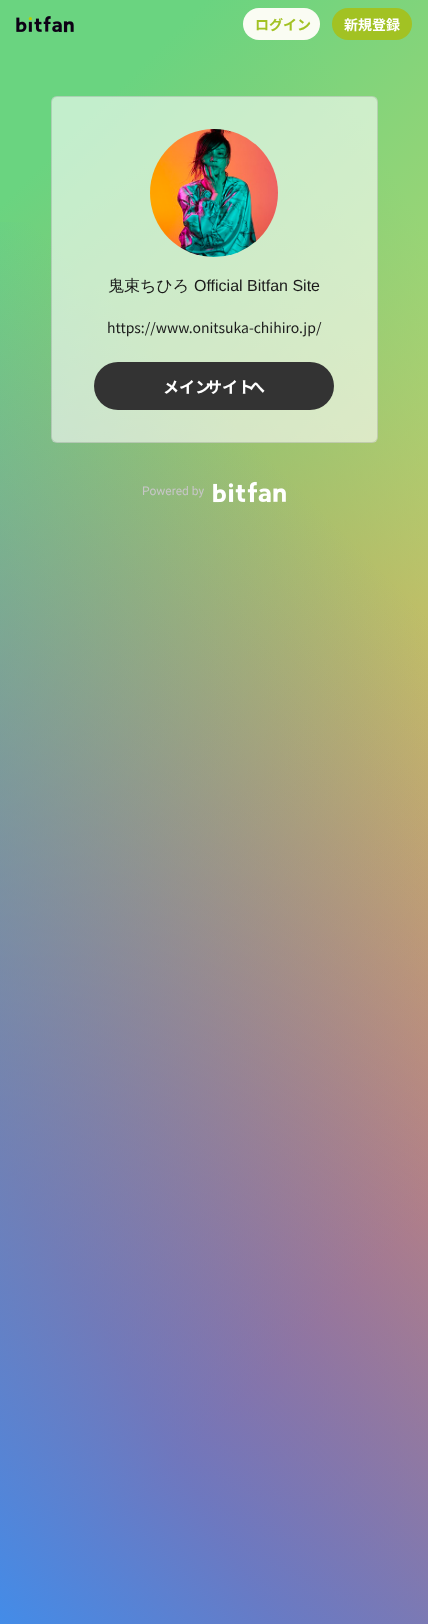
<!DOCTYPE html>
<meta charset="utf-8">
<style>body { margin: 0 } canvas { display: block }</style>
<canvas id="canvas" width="428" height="1624"></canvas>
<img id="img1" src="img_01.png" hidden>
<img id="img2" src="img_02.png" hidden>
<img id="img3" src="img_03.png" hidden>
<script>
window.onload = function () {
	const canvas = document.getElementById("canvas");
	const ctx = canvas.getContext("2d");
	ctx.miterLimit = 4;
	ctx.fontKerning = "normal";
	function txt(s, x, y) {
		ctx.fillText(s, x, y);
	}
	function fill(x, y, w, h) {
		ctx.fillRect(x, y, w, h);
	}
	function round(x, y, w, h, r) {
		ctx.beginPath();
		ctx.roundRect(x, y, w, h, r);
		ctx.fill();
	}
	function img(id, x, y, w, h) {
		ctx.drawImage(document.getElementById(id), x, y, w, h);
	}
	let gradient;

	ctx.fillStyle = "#FFFFFF";
	fill(0, 0, 428, 1624);
	gradient = ctx.createLinearGradient(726, 516, -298, 1108);
	gradient.addColorStop(0.1, "#FBD460");
	gradient.addColorStop(0.8, "#FF3434");
	ctx.fillStyle = gradient;
	fill(0, 0, 428, 1624);
	gradient = ctx.createLinearGradient(-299, 299, 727, 1325);
	gradient.addColorStop(0.1, "#6AD480");
	gradient.addColorStop(0.8, "rgba(106, 212, 128, 0)");
	ctx.fillStyle = gradient;
	fill(0, 0, 428, 1610);
	gradient = ctx.createLinearGradient(-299, 1325, 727, 299);
	gradient.addColorStop(0, "#438CE8");
	gradient.addColorStop(0.7, "rgba(67, 140, 232, 0)");
	ctx.fillStyle = gradient;
	fill(0, 222, 428, 1402);
	img("img1", 16, 16, 58, 17);
	ctx.fillStyle = "#FAFCF3";
	round(243, 8, 77, 32, 16);
	ctx.fillStyle = "#A2C223";
	round(332, 8, 80, 32, 16);
	ctx.fillStyle = "rgba(255, 255, 255, 0.6)";
	round(51, 96, 327, 347, 6);
	ctx.beginPath();
	ctx.roundRect(51.5, 96.5, 326, 346, 5.5);
	ctx.strokeStyle = "rgba(0, 0, 0, 0.12)";
	ctx.stroke();
	img("img2", 150, 129, 128, 128);
	ctx.fillStyle = "#333333";
	round(94, 362, 240, 48, 24);
	img("img3", 213, 481, 73, 22);
	ctx.font = "bold 14px Noto Sans JP";
	ctx.fillStyle = "#A2C223";
	txt("ログイン", 255, 30);
	ctx.fillStyle = "#FFFFFF";
	txt("新規登録", 344, 30);
	ctx.font = "500 16px WenQuanYi Zen Hei";
	ctx.fillStyle = "#1A1A1A";
	txt("鬼束ちひろ", 108, 291);
	ctx.font = "16px Liberation Sans";
	txt("Official Bitfan Site", 194, 291);
	ctx.font = "14px Noto Sans JP";
	txt("https://www.onitsuka-chihiro.jp/", 107, 333);
	ctx.font = "bold 16px Noto Sans JP";
	ctx.fillStyle = "#FFFFFF";
	txt("メイン", 163, 393);
	txt("サイト", 206, 393);
	txt("へ", 249, 393);
	ctx.font = "12px Roboto";
	ctx.fillStyle = "#C6C6C6";
	txt("Powered by", 142, 495);
};
</script>
